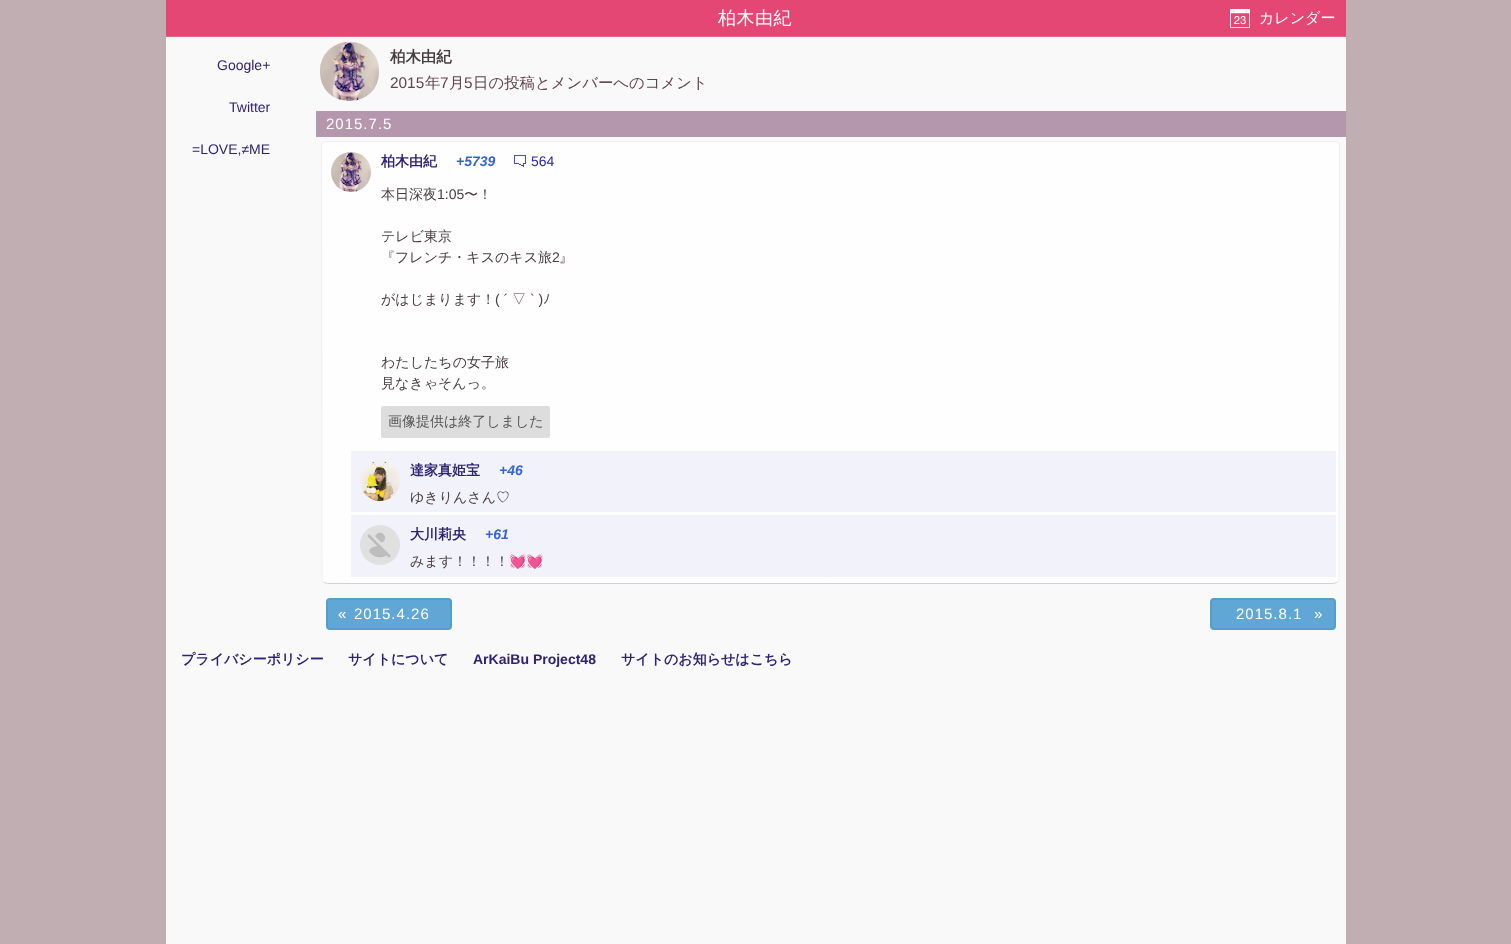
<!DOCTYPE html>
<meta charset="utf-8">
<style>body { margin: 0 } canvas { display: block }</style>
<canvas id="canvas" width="1511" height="944"></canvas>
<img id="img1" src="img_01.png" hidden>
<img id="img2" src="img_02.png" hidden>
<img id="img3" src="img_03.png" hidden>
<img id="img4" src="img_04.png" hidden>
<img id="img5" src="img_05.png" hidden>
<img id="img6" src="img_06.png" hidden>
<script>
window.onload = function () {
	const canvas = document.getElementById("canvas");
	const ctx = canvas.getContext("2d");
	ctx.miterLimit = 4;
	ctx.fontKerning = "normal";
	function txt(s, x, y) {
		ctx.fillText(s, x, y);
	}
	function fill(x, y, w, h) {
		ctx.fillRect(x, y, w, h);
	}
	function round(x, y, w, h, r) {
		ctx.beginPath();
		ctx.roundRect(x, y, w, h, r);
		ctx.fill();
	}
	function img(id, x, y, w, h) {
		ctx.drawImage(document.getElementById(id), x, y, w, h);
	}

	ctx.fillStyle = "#C0AEB3";
	fill(0, 0, 1511, 944);
	ctx.fillStyle = "#FAF9F9";
	fill(166, 37, 1180, 907);
	ctx.fillStyle = "#E54774";
	fill(166, 0, 1180, 36);
	ctx.fillStyle = "#DA6989";
	fill(166, 36, 1180, 1);
	img("img1", 1230, 9, 20, 19);
	img("img2", 320, 42, 59, 59);
	ctx.fillStyle = "#B496AD";
	fill(316, 111, 1030, 26);
	ctx.fillStyle = "#FFFEFE";
	ctx.beginPath();
	ctx.moveTo(325, 141);
	ctx.lineTo(1336, 141);
	ctx.bezierCurveTo(1338, 141, 1340, 143, 1340, 145);
	ctx.lineTo(1340, 579);
	ctx.bezierCurveTo(1340, 582, 1336, 584, 1332, 584);
	ctx.lineTo(329, 584);
	ctx.bezierCurveTo(325, 584, 321, 582, 321, 579);
	ctx.lineTo(321, 145);
	ctx.bezierCurveTo(321, 143, 323, 141, 325, 141);
	ctx.closePath();
	ctx.fill();
	ctx.beginPath();
	ctx.moveTo(322.5, 142.5);
	ctx.lineTo(325, 141.5);
	ctx.lineTo(1336, 141.5);
	ctx.lineTo(1338.5, 142.5);
	ctx.strokeStyle = "#F0EEEE";
	ctx.stroke();
	ctx.beginPath();
	ctx.moveTo(1338.5, 142.5);
	ctx.lineTo(1339.5, 145);
	ctx.lineTo(1339, 580.5);
	ctx.lineTo(1337.5, 582);
	ctx.strokeStyle = "#EEECEC";
	ctx.stroke();
	ctx.beginPath();
	ctx.moveTo(1337.5, 582);
	ctx.bezierCurveTo(1336, 583, 1334, 583.5, 1332, 583.5);
	ctx.lineTo(329, 583.5);
	ctx.bezierCurveTo(327, 583.5, 325, 583, 323.5, 582);
	ctx.strokeStyle = "#D5D0D0";
	ctx.stroke();
	ctx.beginPath();
	ctx.moveTo(323.5, 582);
	ctx.lineTo(322, 580.5);
	ctx.lineTo(321.5, 145);
	ctx.lineTo(322.5, 142.5);
	ctx.strokeStyle = "#EEECEC";
	ctx.stroke();
	img("img3", 331, 152, 40, 40);
	img("img4", 514, 155, 12, 12);
	ctx.fillStyle = "#DDDDDD";
	round(381, 406, 169, 32, 2);
	ctx.fillStyle = "#F2F2FA";
	fill(351, 451, 985, 61);
	img("img5", 360, 461, 40, 40);
	fill(351, 515, 985, 62);
	img("img6", 360, 525, 40, 40);
	ctx.fillStyle = "#61A7D6";
	ctx.beginPath();
	ctx.roundRect(327, 599, 124, 30, 3);
	ctx.fill();
	ctx.strokeStyle = "#52A0C9";
	ctx.lineWidth = 2;
	ctx.stroke();
	ctx.beginPath();
	ctx.roundRect(1211, 599, 124, 30, 3);
	ctx.fill();
	ctx.stroke();
	ctx.letterSpacing = "0.5px";
	ctx.font = "500 18px WenQuanYi Zen Hei";
	ctx.fillStyle = "#FFFFFF";
	txt("柏木由紀", 718, 24);
	ctx.letterSpacing = "0px";
	ctx.font = "500 15px WenQuanYi Zen Hei";
	txt("カレンダー", 1259, 23);
	ctx.font = "14px Liberation Sans";
	ctx.fillStyle = "#2E2272";
	txt("Google+", 217, 70);
	txt("Twitter", 229, 112);
	txt("=LOVE,≠ME", 192, 154);
	ctx.font = "bold 15.4px WenQuanYi Zen Hei";
	ctx.fillStyle = "#473C3F";
	txt("柏木由紀", 390, 62);
	ctx.font = "15.4px Liberation Sans";
	ctx.fillStyle = "#60434D";
	txt("2015", 390, 88);
	ctx.font = "500 15.4px WenQuanYi Zen Hei";
	txt("年", 425, 88);
	ctx.font = "15.4px Liberation Sans";
	txt("7", 440, 88);
	ctx.font = "500 15.4px WenQuanYi Zen Hei";
	txt("月", 449, 88);
	ctx.font = "15.4px Liberation Sans";
	txt("5", 464, 88);
	ctx.font = "500 15.4px WenQuanYi Zen Hei";
	txt("日の投稿とメンバーへのコメント", 473, 88);
	ctx.letterSpacing = "1px";
	ctx.font = "15px Liberation Sans";
	ctx.fillStyle = "#FFFFFF";
	txt("2015.7.5", 326, 129);
	ctx.letterSpacing = "0px";
	ctx.font = "bold 14px WenQuanYi Zen Hei";
	ctx.fillStyle = "#2E2272";
	txt("柏木由紀", 381, 166);
	ctx.font = "italic bold 14px Liberation Sans";
	ctx.fillStyle = "#3366CC";
	txt("+5739", 456, 166);
	ctx.font = "14px Liberation Sans";
	ctx.fillStyle = "#2425A6";
	txt("564", 531, 166);
	ctx.font = "500 14px WenQuanYi Zen Hei";
	ctx.fillStyle = "#473C3F";
	txt("本日深夜", 381, 199);
	ctx.font = "14px Liberation Sans";
	txt("1:05", 437, 199);
	ctx.font = "500 14px WenQuanYi Zen Hei";
	txt("〜！", 464, 199);
	txt("テレビ東京", 381, 241);
	txt("『フレンチ・キスのキス旅", 381, 262);
	ctx.font = "14px Liberation Sans";
	txt("2", 552, 262);
	ctx.font = "500 14px WenQuanYi Zen Hei";
	txt("』", 559, 262);
	txt("がはじまります！", 381, 304);
	ctx.font = "14px Liberation Sans";
	txt("( ´", 495, 304);
	ctx.font = "500 14px WenQuanYi Zen Hei";
	txt("▽", 512, 304);
	ctx.font = "14px Liberation Sans";
	txt("` )", 530, 304);
	ctx.font = "14px IPAPGothic";
	txt("ﾉ", 543, 304);
	ctx.font = "500 14px WenQuanYi Zen Hei";
	txt("わたしたちの女子旅", 381, 367);
	txt("見なきゃそんっ。", 381, 388);
	ctx.fillStyle = "#555555";
	txt("画像提供は終了しました", 388, 426);
	ctx.font = "bold 14px WenQuanYi Zen Hei";
	ctx.fillStyle = "#2E2272";
	txt("達家真姫宝", 410, 475);
	ctx.font = "italic bold 14px Liberation Sans";
	ctx.fillStyle = "#3366CC";
	txt("+46", 499, 475);
	ctx.font = "500 14px WenQuanYi Zen Hei";
	ctx.fillStyle = "#473C3F";
	txt("ゆきりんさん♡", 410, 502);
	ctx.font = "bold 14px WenQuanYi Zen Hei";
	ctx.fillStyle = "#2E2272";
	txt("大川莉央", 410, 539);
	ctx.font = "italic bold 14px Liberation Sans";
	ctx.fillStyle = "#3366CC";
	txt("+61", 485, 539);
	ctx.font = "500 14px WenQuanYi Zen Hei";
	ctx.fillStyle = "#473C3F";
	txt("みます！！！！", 410, 566);
	ctx.font = "14px Noto Color Emoji";
	txt("💓💓", 509, 566);
	ctx.letterSpacing = "1px";
	ctx.font = "15px Liberation Sans";
	ctx.fillStyle = "#FFFFFF";
	txt("«", 338, 619);
	txt("2015.4.26", 354, 619);
	txt("2015.8.1", 1236, 619);
	txt("»", 1314, 619);
	ctx.letterSpacing = "0px";
	ctx.font = "bold 14px WenQuanYi Zen Hei";
	ctx.fillStyle = "#2E2272";
	txt("プライバシーポリシー", 181, 664);
	txt("サイトについて", 348, 664);
	ctx.font = "bold 14px Liberation Sans";
	txt("ArKaiBu Project48", 473, 664);
	ctx.font = "bold 14px WenQuanYi Zen Hei";
	txt("サイトのお知らせはこちら", 621, 664);
};
</script>
